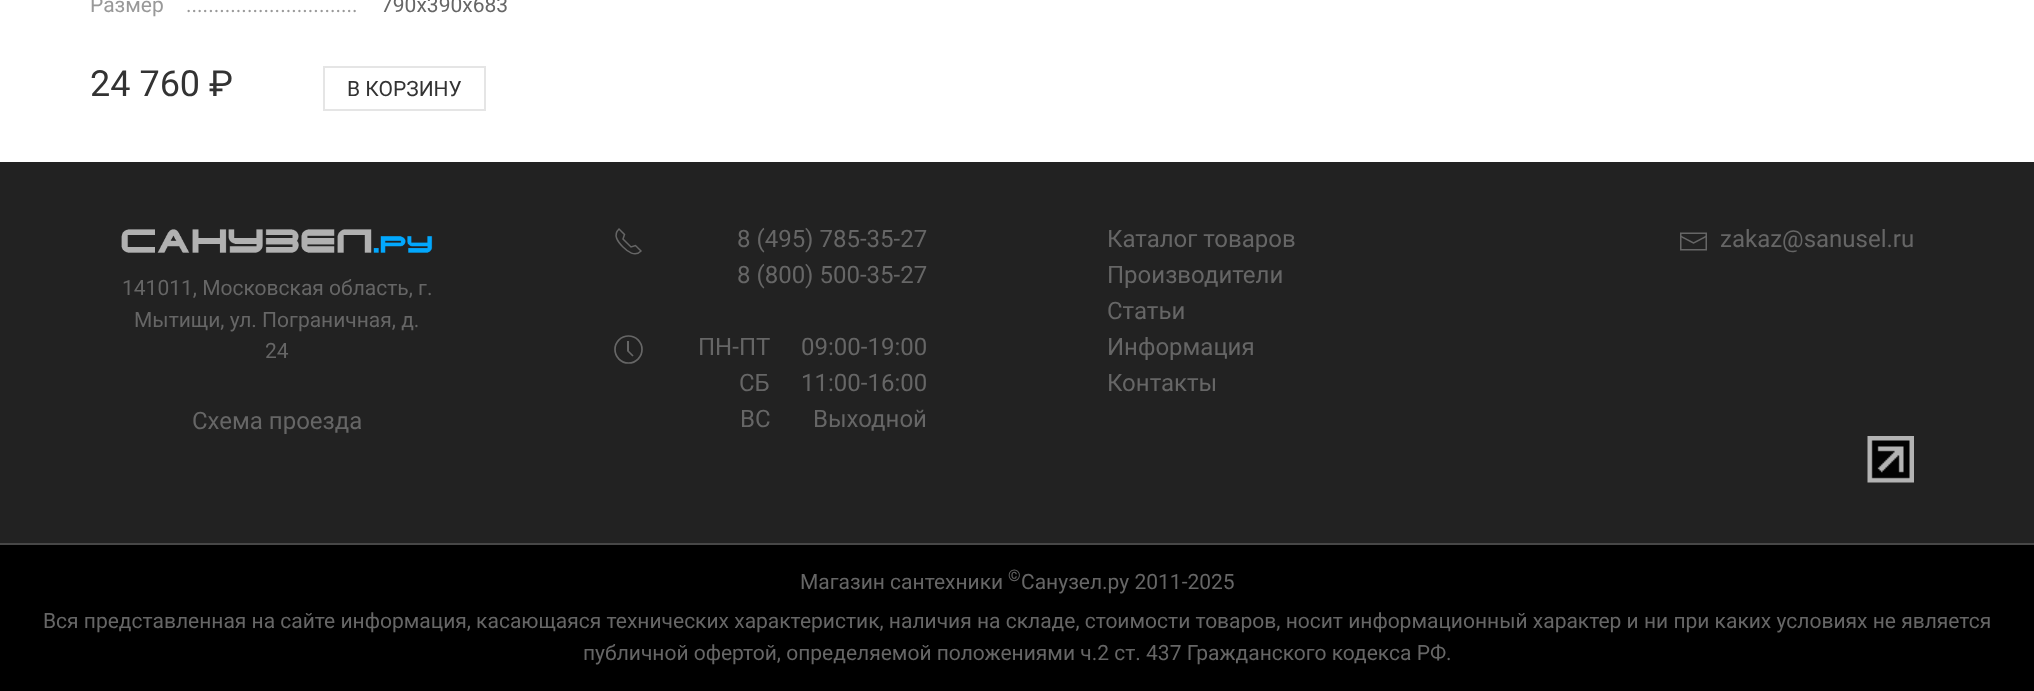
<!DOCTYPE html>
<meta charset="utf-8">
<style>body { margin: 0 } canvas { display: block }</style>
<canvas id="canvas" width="2034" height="691"></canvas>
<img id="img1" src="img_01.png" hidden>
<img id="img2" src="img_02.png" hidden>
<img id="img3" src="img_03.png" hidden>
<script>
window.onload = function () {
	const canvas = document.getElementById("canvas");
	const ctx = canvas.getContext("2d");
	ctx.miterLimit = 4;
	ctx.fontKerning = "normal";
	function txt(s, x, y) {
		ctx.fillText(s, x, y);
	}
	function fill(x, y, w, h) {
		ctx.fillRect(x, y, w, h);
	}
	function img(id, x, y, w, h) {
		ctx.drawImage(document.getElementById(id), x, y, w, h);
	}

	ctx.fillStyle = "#FFFFFF";
	fill(0, 0, 2034, 691);
	ctx.strokeStyle = "#E5E5E5";
	ctx.lineWidth = 2;
	ctx.strokeRect(324, 67, 161, 43);
	ctx.fillStyle = "#222222";
	fill(0, 162, 2034, 381);
	ctx.beginPath();
	ctx.moveTo(623, 247);
	ctx.bezierCurveTo(627.5, 251.5, 635, 257.5, 641, 251);
	ctx.lineTo(635.5, 245.5);
	ctx.lineTo(631, 247);
	ctx.lineTo(623, 239);
	ctx.lineTo(624.5, 234.5);
	ctx.lineTo(619, 229);
	ctx.bezierCurveTo(612.5, 235, 618, 242, 623, 247);
	ctx.strokeStyle = "#666666";
	ctx.lineWidth = 1.5;
	ctx.stroke();
	ctx.beginPath();
	ctx.arc(628.5, 349.5, 13.5, 0, Math.PI * 2);
	ctx.lineWidth = 1.7;
	ctx.stroke();
	ctx.fillStyle = "#666666";
	fill(627, 341, 2, 10);
	ctx.beginPath();
	ctx.moveTo(633, 356);
	ctx.lineTo(627.5, 350.5);
	ctx.stroke();
	img("img1", 1680, 232, 27, 19);
	img("img2", 1867, 436, 47, 47);
	img("img3", 121, 229, 312, 24);
	ctx.fillStyle = "#000000";
	fill(0, 545, 2034, 146);
	ctx.fillStyle = "#474747";
	fill(0, 543, 2034, 2);
	ctx.font = "21px Roboto";
	ctx.fillStyle = "#999999";
	txt("Размер", 90, 12);
	txt("...............................", 186, 12);
	ctx.fillStyle = "#666666";
	txt("790x390x683", 381, 12);
	ctx.font = "36px Roboto";
	ctx.fillStyle = "#333333";
	txt("24 760 ₽", 90, 96);
	ctx.font = "21px Roboto";
	txt("В КОРЗИНУ", 347, 96);
	ctx.font = "24px Roboto";
	ctx.fillStyle = "#666666";
	txt("8 (495) 785-35-27", 737, 247);
	txt("8 (800) 500-35-27", 737, 283);
	txt("ПН-ПТ", 698, 355);
	txt("09:00-19:00", 801, 355);
	txt("СБ", 739, 391);
	txt("11:00-16:00", 801, 391);
	txt("ВС", 740, 427);
	txt("Выходной", 813, 427);
	txt("Каталог товаров", 1107, 247);
	txt("Производители", 1107, 283);
	txt("Статьи", 1107, 319);
	txt("Информация", 1107, 355);
	txt("Контакты", 1107, 391);
	txt("zakaz@sanusel.ru", 1720, 247);
	ctx.font = "21px Roboto";
	txt("141011, Московская область, г.", 122, 295);
	txt("Мытищи, ул. Пограничная, д.", 134, 327);
	txt("24", 265, 358);
	ctx.font = "24px Roboto";
	txt("Схема проезда", 192, 429);
	ctx.font = "21px Roboto";
	txt("Магазин сантехники", 800, 589);
	ctx.font = "16px Roboto";
	txt("©", 1008, 581);
	ctx.font = "21px Roboto";
	txt("Санузел.ру 2011-2025", 1021, 589);
	txt("Вся представленная на сайте информация, касающаяся технических характеристик, наличия на складе, стоимости товаров, носит информационный характер и ни при каких условиях не является", 43, 628);
	txt("публичной офертой, определяемой положениями ч.2 ст. 437 Гражданского кодекса РФ.", 583, 660);
};
</script>
